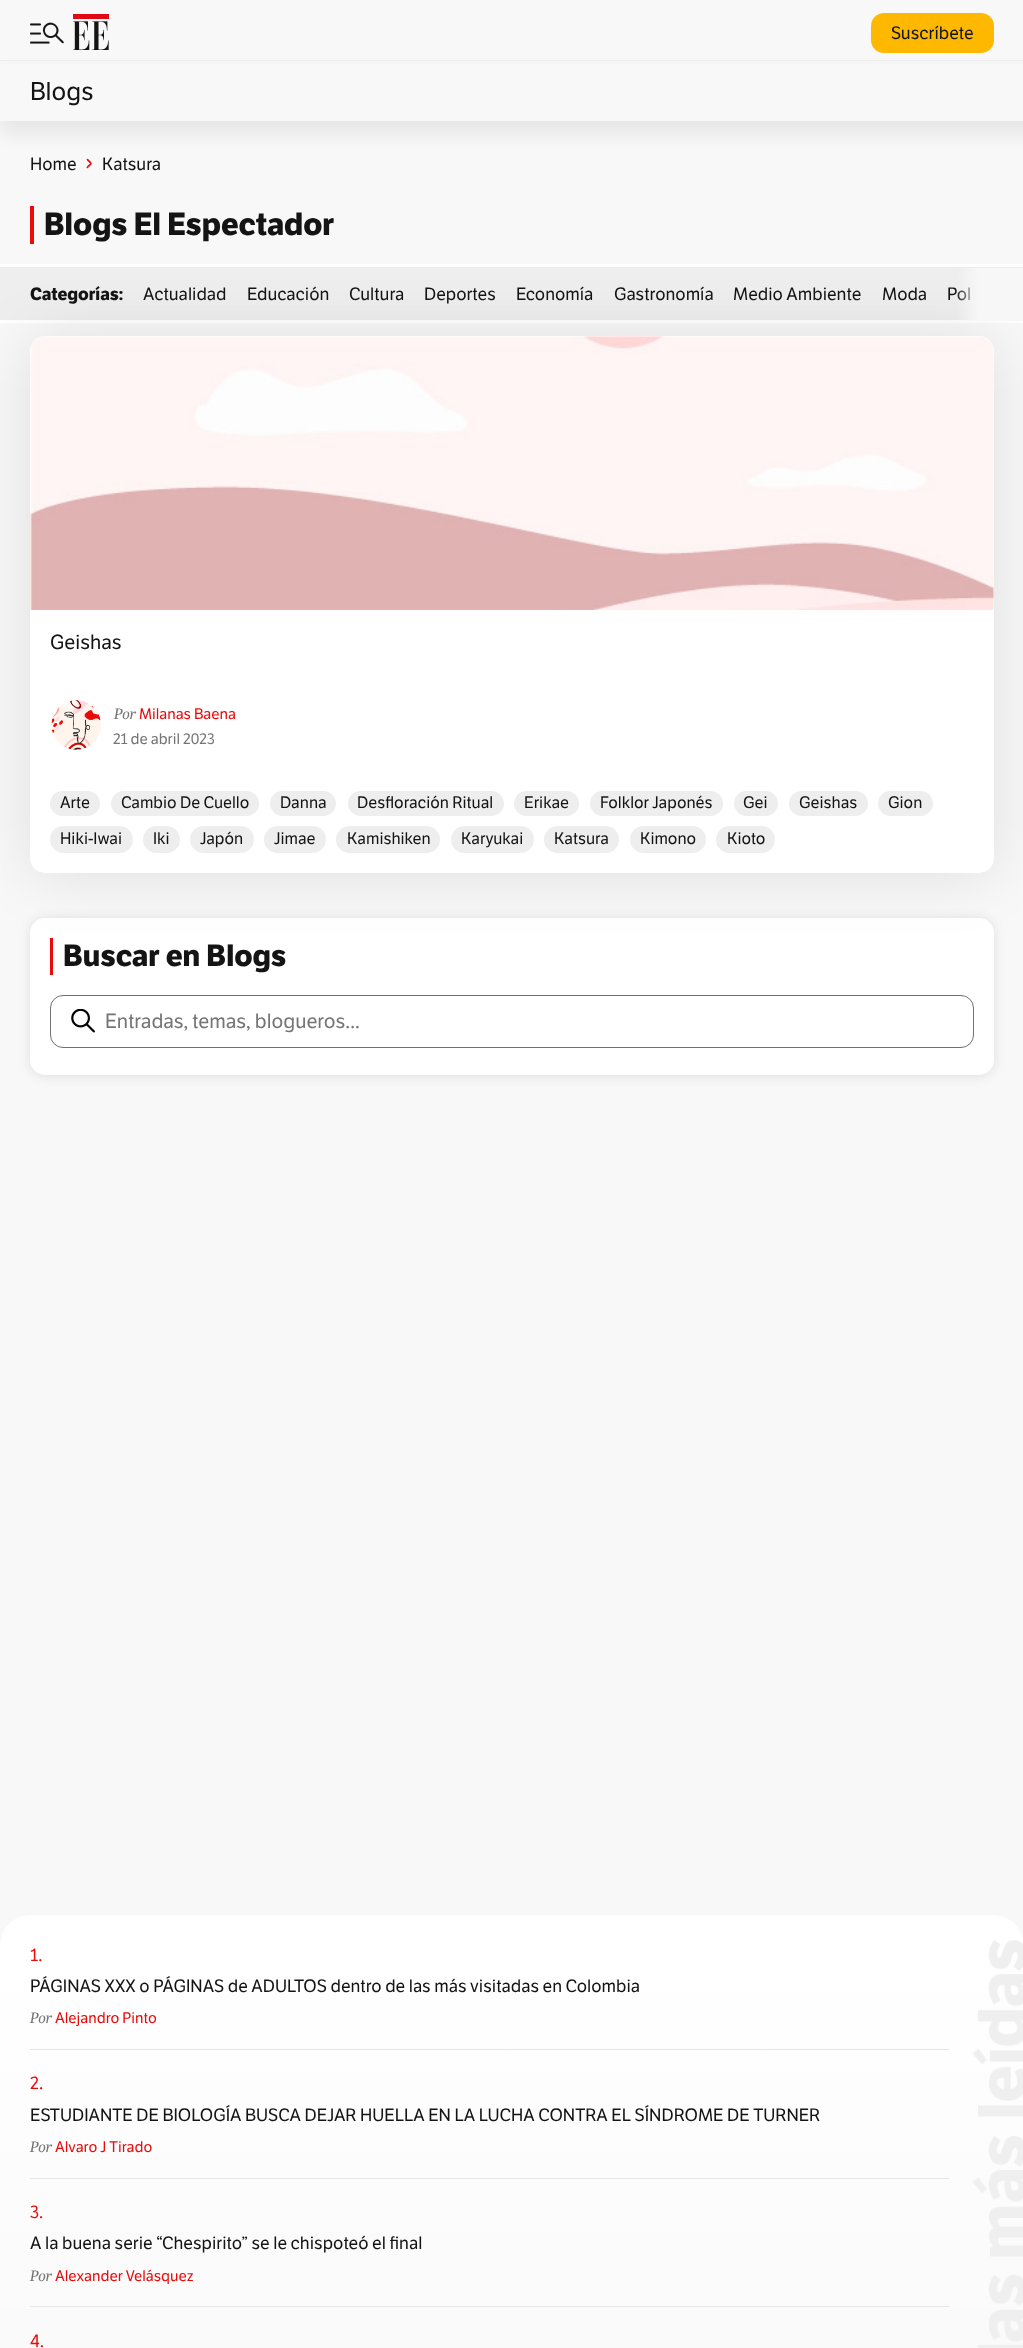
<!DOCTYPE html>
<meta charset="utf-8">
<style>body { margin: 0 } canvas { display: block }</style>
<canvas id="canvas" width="1023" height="2348"></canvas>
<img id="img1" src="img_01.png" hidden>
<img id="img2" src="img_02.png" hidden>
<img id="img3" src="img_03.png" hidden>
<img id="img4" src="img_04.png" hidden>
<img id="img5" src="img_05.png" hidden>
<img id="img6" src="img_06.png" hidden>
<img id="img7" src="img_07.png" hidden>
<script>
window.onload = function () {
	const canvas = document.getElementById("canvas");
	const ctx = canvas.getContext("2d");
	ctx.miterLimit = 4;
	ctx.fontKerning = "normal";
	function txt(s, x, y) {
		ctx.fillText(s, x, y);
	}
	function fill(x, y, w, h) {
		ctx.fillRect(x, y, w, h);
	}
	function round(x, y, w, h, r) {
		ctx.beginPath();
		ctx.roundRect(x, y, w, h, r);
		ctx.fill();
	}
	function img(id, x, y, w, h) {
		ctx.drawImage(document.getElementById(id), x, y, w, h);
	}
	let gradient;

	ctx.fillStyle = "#F8F8F8";
	fill(0, 0, 1023, 2348);
	ctx.fillStyle = "#EEEEEE";
	fill(0, 60, 1023, 1);
	img("img1", 30, 22, 34, 22);
	img("img2", 73, 14, 36, 36);
	ctx.fillStyle = "#FFB800";
	round(871, 13, 123, 40, 13);
	img("img3", 86, 158, 6, 11);
	ctx.fillStyle = "rgba(0, 0, 0, 0.07)";
	ctx.filter = "blur(9.5px)";
	ctx.beginPath();
	ctx.rect(0, 74, 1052, 60);
	ctx.fill();
	ctx.filter = "none";
	ctx.fillStyle = "#F8F8F8";
	fill(0, 64, 1023, 57);
	ctx.fillStyle = "#EA0A0A";
	fill(30, 206, 4, 38);
	ctx.fillStyle = "#EEEEEE";
	fill(0, 267, 1023, 53);
	ctx.fillStyle = "#FFFFFF";
	fill(0, 264, 1023, 3);
	fill(0, 320, 1023, 3);
	ctx.fillStyle = "rgba(0, 0, 0, 0.1)";
	ctx.filter = "blur(6px)";
	ctx.beginPath();
	ctx.roundRect(30, 919, 964, 157, 15);
	ctx.fill();
	ctx.filter = "none";
	ctx.fillStyle = "#FFFFFF";
	round(30, 918, 964, 157, 15);
	ctx.fillStyle = "#EA0A0A";
	fill(50, 938, 3, 37);
	ctx.fillStyle = "rgba(0, 0, 0, 0.1)";
	ctx.filter = "blur(31px)";
	ctx.beginPath();
	ctx.roundRect(30, 338, 964, 536, 15);
	ctx.fill();
	ctx.filter = "none";
	ctx.fillStyle = "#FFFFFF";
	round(30, 336, 964, 537, 15);
	img("img4", 30, 336, 964, 274);
	img("img5", 51, 700, 50, 50);
	ctx.fillStyle = "#EEEEEE";
	round(50, 791, 50, 25, 12.5);
	round(111, 791, 148, 25, 12.5);
	round(270, 791, 66, 25, 12.5);
	round(348, 791, 156, 25, 12.5);
	round(514, 791, 65, 25, 12.5);
	round(590, 791, 133, 25, 12.5);
	round(734, 791, 44, 25, 12.5);
	round(789, 791, 79, 25, 12.5);
	round(878, 791, 55, 25, 12.5);
	round(50, 826, 83, 27, 13.5);
	round(143, 826, 37, 27, 13.5);
	round(190, 826, 64, 27, 13.5);
	round(264, 826, 62, 27, 13.5);
	round(336, 826, 104, 27, 13.5);
	round(451, 826, 83, 27, 13.5);
	round(544, 826, 75, 27, 13.5);
	round(630, 826, 76, 27, 13.5);
	round(716, 826, 59, 27, 13.5);
	ctx.beginPath();
	ctx.roundRect(50.5, 995.5, 923, 52, 12.5);
	ctx.strokeStyle = "#707070";
	ctx.stroke();
	img("img6", 71, 1009, 24, 24);
	img("img7", 0, 1915, 1023, 433);
	ctx.fillStyle = "#E5E5E5";
	fill(30, 2049, 919, 1);
	fill(30, 2178, 919, 1);
	fill(30, 2306, 919, 1);
	ctx.font = "17.5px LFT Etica";
	ctx.fillStyle = "#141414";
	txt("Suscríbete", 891, 39);
	ctx.font = "25px LFT Etica";
	txt("Blogs", 30, 100);
	ctx.font = "17.5px LFT Etica";
	txt("Home", 30, 170);
	txt("Katsura", 102, 170);
	ctx.font = "bold 31.25px LFT Etica";
	txt("Blogs El Espectador", 44, 235);
	ctx.font = "bold 17.5px LFT Etica";
	txt("Categorías:", 30, 300);
	ctx.font = "17.5px LFT Etica";
	txt("Actualidad", 143, 300);
	txt("Educación", 247, 300);
	txt("Cultura", 349, 300);
	txt("Deportes", 424, 300);
	txt("Economía", 516, 300);
	txt("Gastronomía", 614, 300);
	txt("Medio Ambiente", 733, 300);
	txt("Moda", 882, 300);
	txt("Pol", 947, 300);
	gradient = ctx.createLinearGradient(956, 294, 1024, 294);
	gradient.addColorStop(0, "rgba(247, 247, 247, 0)");
	gradient.addColorStop(0.35, "#F7F7F7");
	ctx.fillStyle = gradient;
	fill(957, 268, 66, 53);
	ctx.font = "20px LFT Etica";
	ctx.fillStyle = "#141414";
	txt("Geishas", 50, 649);
	ctx.font = "italic 15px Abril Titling";
	ctx.fillStyle = "#757575";
	txt("Por", 114, 719);
	ctx.font = "15px LFT Etica";
	ctx.fillStyle = "#EA0A0A";
	txt("Milanas Baena", 139, 719);
	ctx.fillStyle = "#757575";
	txt("21 de abril 2023", 113, 744);
	ctx.font = "16.25px LFT Etica";
	ctx.fillStyle = "#141414";
	txt("Arte", 60, 808);
	txt("Cambio De Cuello", 121, 808);
	txt("Danna", 280, 808);
	txt("Desfloración Ritual", 357, 808);
	txt("Erikae", 524, 808);
	txt("Folklor Japonés", 600, 808);
	txt("Gei", 743, 808);
	txt("Geishas", 799, 808);
	txt("Gion", 888, 808);
	txt("Hiki-Iwai", 60, 844);
	txt("Iki", 153, 844);
	txt("Japón", 200, 844);
	txt("Jimae", 274, 844);
	txt("Kamishiken", 347, 844);
	txt("Karyukai", 461, 844);
	txt("Katsura", 554, 844);
	txt("Kimono", 640, 844);
	txt("Kioto", 727, 844);
	ctx.font = "bold 30px LFT Etica";
	txt("Buscar en Blogs", 63, 966);
	ctx.font = "20px LFT Etica";
	ctx.fillStyle = "#757575";
	txt("Entradas, temas, blogueros...", 105, 1028);
	ctx.font = "17.5px LFT Etica";
	ctx.fillStyle = "#EA0A0A";
	txt("1.", 30, 1961);
	ctx.fillStyle = "#141414";
	txt("PÁGINAS XXX o PÁGINAS de ADULTOS dentro de las más visitadas en Colombia", 30, 1992);
	ctx.font = "italic 15px Abril Titling";
	ctx.fillStyle = "#757575";
	txt("Por", 30, 2023);
	ctx.font = "15px LFT Etica";
	ctx.fillStyle = "#EA0A0A";
	txt("Alejandro Pinto", 55, 2023);
	ctx.font = "17.5px LFT Etica";
	txt("2.", 30, 2089);
	ctx.fillStyle = "#141414";
	txt("ESTUDIANTE DE BIOLOGÍA BUSCA DEJAR HUELLA EN LA LUCHA CONTRA EL SÍNDROME DE TURNER", 30, 2121);
	ctx.font = "italic 15px Abril Titling";
	ctx.fillStyle = "#757575";
	txt("Por", 30, 2152);
	ctx.font = "15px LFT Etica";
	ctx.fillStyle = "#EA0A0A";
	txt("Alvaro J Tirado", 55, 2152);
	ctx.font = "17.5px LFT Etica";
	txt("3.", 30, 2218);
	ctx.fillStyle = "#141414";
	txt("A la buena serie “Chespirito” se le chispoteó el final", 30, 2249);
	ctx.font = "italic 15px Abril Titling";
	ctx.fillStyle = "#757575";
	txt("Por", 30, 2281);
	ctx.font = "15px LFT Etica";
	ctx.fillStyle = "#EA0A0A";
	txt("Alexander Velásquez", 55, 2281);
	ctx.font = "17.5px LFT Etica";
	txt("4.", 30, 2347);
};
</script>
